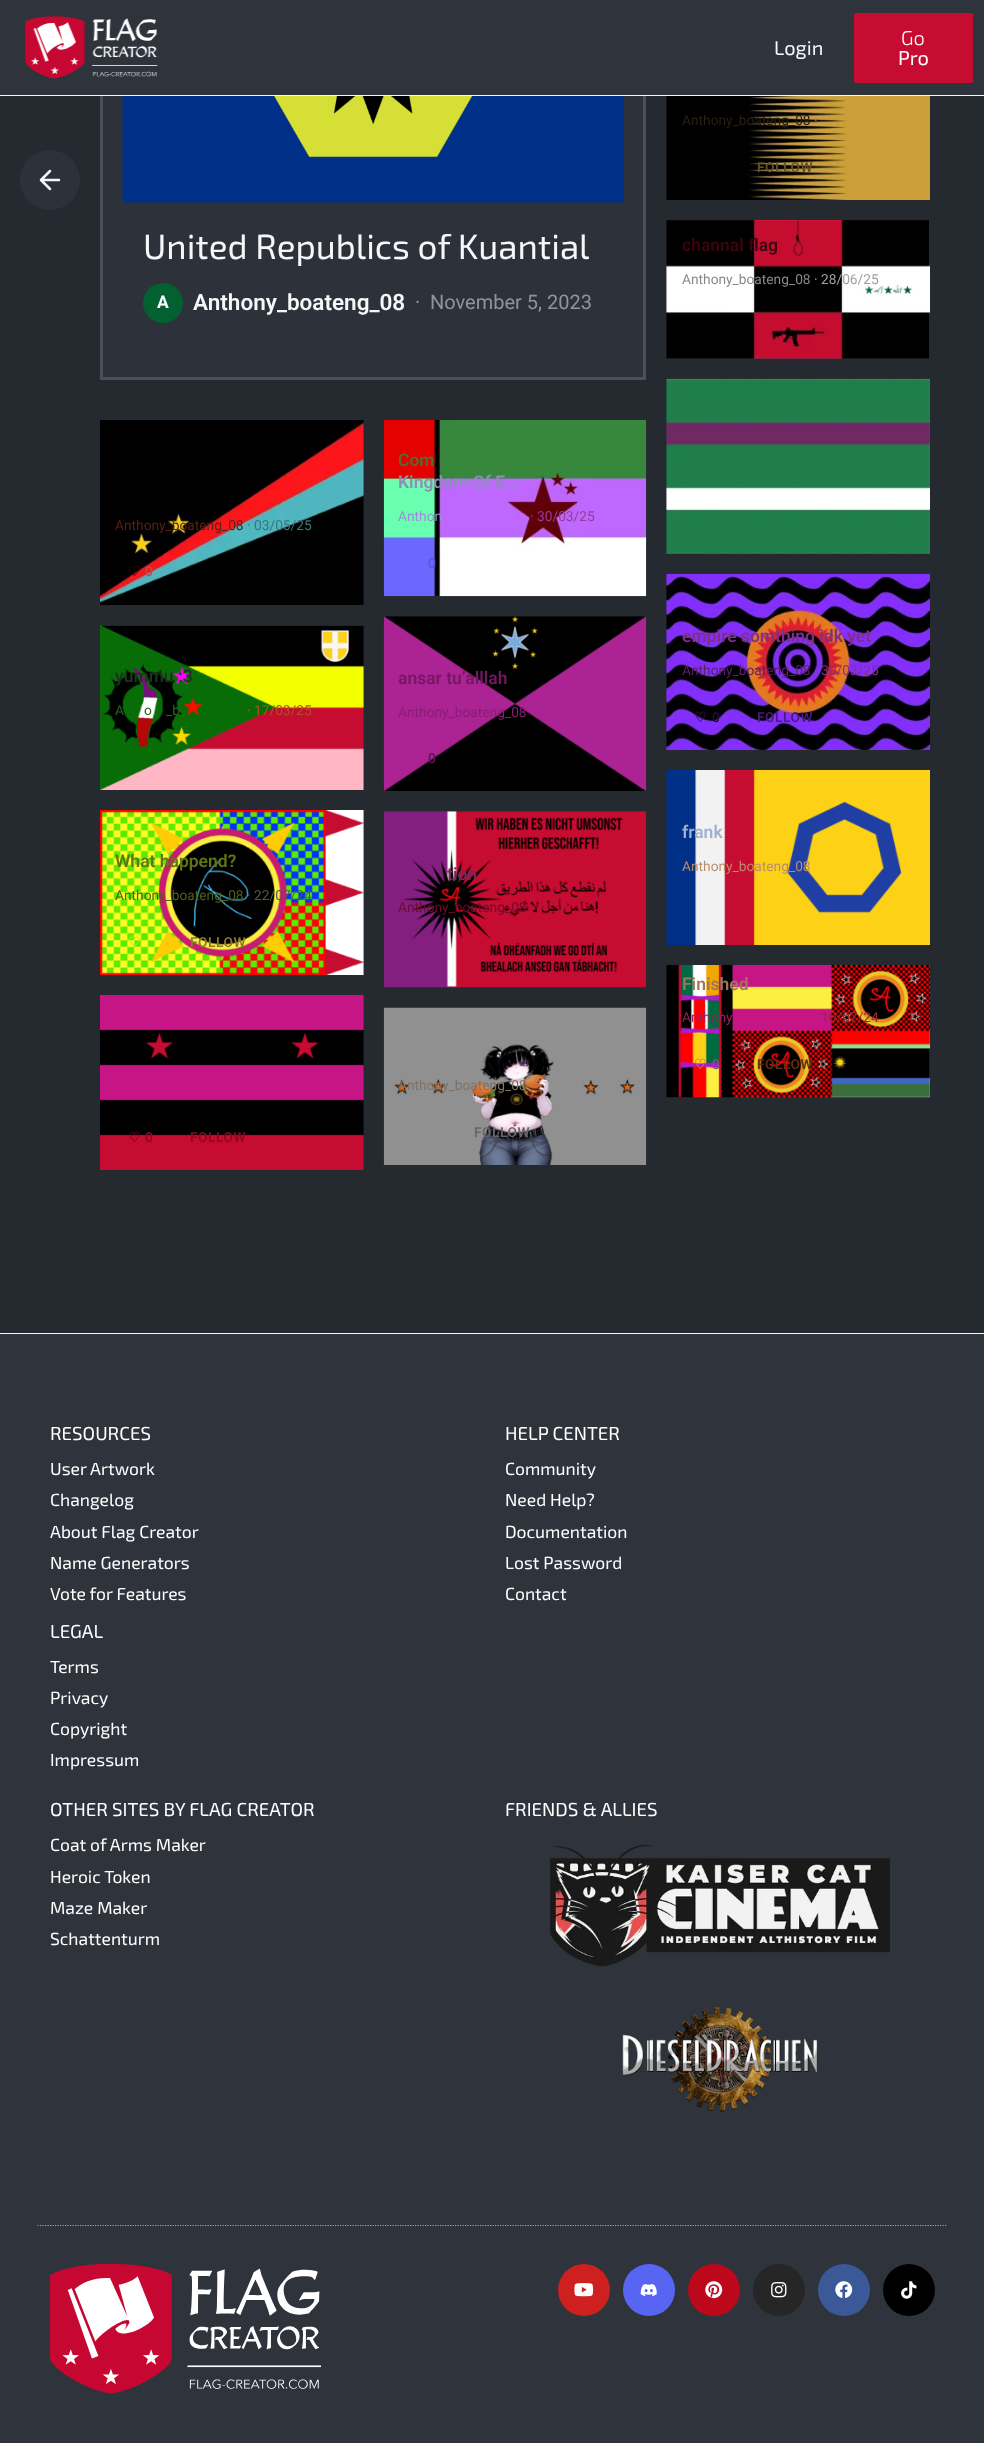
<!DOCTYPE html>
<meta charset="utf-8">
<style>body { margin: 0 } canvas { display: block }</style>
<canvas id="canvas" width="984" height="2443"></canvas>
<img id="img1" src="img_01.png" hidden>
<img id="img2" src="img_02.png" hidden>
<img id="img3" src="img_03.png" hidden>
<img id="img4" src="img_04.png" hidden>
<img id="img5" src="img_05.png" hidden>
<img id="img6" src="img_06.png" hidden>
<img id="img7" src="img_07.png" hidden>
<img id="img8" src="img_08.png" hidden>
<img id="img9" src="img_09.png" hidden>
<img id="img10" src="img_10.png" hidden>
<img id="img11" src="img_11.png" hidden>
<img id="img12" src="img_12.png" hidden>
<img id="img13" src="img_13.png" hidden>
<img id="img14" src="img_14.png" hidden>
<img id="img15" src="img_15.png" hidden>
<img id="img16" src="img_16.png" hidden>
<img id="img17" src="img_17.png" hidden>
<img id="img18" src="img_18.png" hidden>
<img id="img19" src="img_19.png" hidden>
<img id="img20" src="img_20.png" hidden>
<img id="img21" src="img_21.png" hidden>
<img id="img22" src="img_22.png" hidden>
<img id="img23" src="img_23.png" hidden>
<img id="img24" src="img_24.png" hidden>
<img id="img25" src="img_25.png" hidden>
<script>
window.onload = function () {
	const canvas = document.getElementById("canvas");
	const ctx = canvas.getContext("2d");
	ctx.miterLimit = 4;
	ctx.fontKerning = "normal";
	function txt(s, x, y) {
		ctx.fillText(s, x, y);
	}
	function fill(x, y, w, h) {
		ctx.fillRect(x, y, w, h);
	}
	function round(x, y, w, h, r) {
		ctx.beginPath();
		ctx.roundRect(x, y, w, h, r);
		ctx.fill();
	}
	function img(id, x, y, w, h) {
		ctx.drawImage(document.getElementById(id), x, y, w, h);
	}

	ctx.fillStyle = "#252A31";
	fill(0, 0, 984, 2443);
	ctx.fillStyle = "#2D3139";
	fill(103, 96, 540, 281);
	ctx.strokeStyle = "#4D5057";
	ctx.lineWidth = 3;
	ctx.strokeRect(101.5, -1.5, 543, 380);
	ctx.fillStyle = "#2F343C";
	fill(0, 0, 984, 95);
	ctx.fillStyle = "#F2F5F7";
	fill(0, 95, 984, 1);
	img("img1", 24, 16, 134, 63);
	ctx.fillStyle = "#C60C30";
	round(854, 13, 119, 70, 2.5);
	ctx.fillStyle = "#2D3139";
	ctx.beginPath();
	ctx.arc(50, 180, 30, 0, Math.PI * 2);
	ctx.fill();
	ctx.beginPath();
	ctx.moveTo(59, 180);
	ctx.lineTo(41, 180);
	ctx.moveTo(50, 189);
	ctx.lineTo(41, 180);
	ctx.lineTo(50, 171);
	ctx.strokeStyle = "#F6F7F9";
	ctx.lineWidth = 2.5;
	ctx.lineCap = "round";
	ctx.lineJoin = "round";
	ctx.stroke();
	img("img2", 666, 96, 264, 104);
	img("img3", 122, 96, 502, 107);
	ctx.fillStyle = "#026031";
	ctx.beginPath();
	ctx.arc(163, 303, 20, 0, Math.PI * 2);
	ctx.fill();
	img("img4", 666, 220, 264, 139);
	img("img5", 100, 420, 264, 185);
	img("img6", 383, 420, 264, 177);
	img("img7", 666, 378, 264, 176);
	img("img8", 100, 625, 264, 165);
	img("img9", 383, 616, 264, 175);
	img("img10", 666, 573, 264, 177);
	img("img11", 100, 810, 264, 165);
	img("img12", 383, 811, 264, 177);
	img("img13", 666, 770, 264, 175);
	img("img14", 666, 965, 264, 133);
	img("img15", 100, 995, 264, 175);
	img("img16", 383, 1007, 264, 158);
	ctx.fillStyle = "#2F343C";
	fill(0, 1334, 984, 1109);
	ctx.fillStyle = "#F5F5F5";
	fill(0, 1333, 984, 1);
	img("img17", 550, 1845, 340, 122);
	img("img18", 622, 2007, 196, 105);
	ctx.beginPath();
	ctx.moveTo(37.5, 2225.5);
	ctx.lineTo(947.5, 2225.5);
	ctx.strokeStyle = "#A3A6A9";
	ctx.lineWidth = 1.2;
	ctx.lineCap = "butt";
	ctx.lineJoin = "miter";
	ctx.setLineDash([1.25, 1.25]);
	ctx.stroke();
	img("img19", 50, 2264, 271, 130);
	ctx.fillStyle = "#CD201F";
	ctx.beginPath();
	ctx.arc(584, 2290, 26, 0, Math.PI * 2);
	ctx.fill();
	img("img20", 574, 2283, 20, 14);
	ctx.fillStyle = "#5865F2";
	ctx.beginPath();
	ctx.arc(649, 2290, 26, 0, Math.PI * 2);
	ctx.fill();
	img("img21", 640, 2283, 17, 14);
	ctx.fillStyle = "#BD081C";
	ctx.beginPath();
	ctx.arc(714, 2290, 26, 0, Math.PI * 2);
	ctx.fill();
	img("img22", 705, 2281, 18, 18);
	ctx.fillStyle = "#262626";
	ctx.beginPath();
	ctx.arc(779, 2290, 26, 0, Math.PI * 2);
	ctx.fill();
	img("img23", 771, 2282, 16, 16);
	ctx.fillStyle = "#3B5998";
	ctx.beginPath();
	ctx.arc(844, 2290, 26, 0, Math.PI * 2);
	ctx.fill();
	img("img24", 835, 2281, 18, 17);
	ctx.fillStyle = "#000000";
	ctx.beginPath();
	ctx.arc(909, 2290, 26, 0, Math.PI * 2);
	ctx.fill();
	img("img25", 901, 2281, 16, 18);
	ctx.font = "20px 'Exo 2'";
	ctx.fillStyle = "#F6F7F9";
	txt("Login", 774, 55);
	ctx.font = "300 20px 'Exo 2'";
	ctx.fillStyle = "#FFFFFF";
	txt("Go", 901, 45);
	ctx.font = "20px 'Exo 2'";
	txt("Pro", 898, 65);
	ctx.font = "13.75px Roboto";
	ctx.fillStyle = "#282010";
	txt("Anthony_boateng_08", 682, 125);
	ctx.fillStyle = "#C39837";
	txt("·", 814, 125);
	ctx.letterSpacing = "0.5px";
	ctx.font = "600 13.75px Roboto";
	ctx.fillStyle = "#645128";
	txt("FOLLOW", 757, 172);
	ctx.letterSpacing = "0px";
	ctx.font = "35px 'Exo 2'";
	ctx.fillStyle = "#F6F7F9";
	txt("United Republics of Kuantial", 143, 259);
	ctx.font = "bold 17.5px Roboto";
	ctx.fillStyle = "#FFFFFF";
	txt("A", 157, 308);
	ctx.font = "600 22.5px Roboto";
	ctx.fillStyle = "#F6F7F9";
	txt("Anthony_boateng_08", 193, 310);
	ctx.font = "20px Roboto";
	ctx.fillStyle = "#929499";
	txt("·", 415, 309);
	txt("November 5, 2023", 430, 309);
	ctx.font = "600 17.5px Roboto";
	ctx.fillStyle = "#3A040E";
	txt("channal flag", 682, 251);
	ctx.font = "13.75px Roboto";
	ctx.fillStyle = "#898989";
	txt("Anthony_boateng_08", 682, 284);
	ctx.fillStyle = "#A0A0A0";
	txt("· 28/06/25", 814, 284);
	ctx.fillStyle = "#562114";
	txt("Anthony_boateng_08", 115, 530);
	ctx.fillStyle = "#35777C";
	txt("· 03/05/25", 247, 530);
	ctx.font = "bold 13.75px DejaVu Sans";
	ctx.fillStyle = "#2C0607";
	txt("♡", 128, 576);
	ctx.font = "600 13.75px Roboto";
	ctx.fillStyle = "#C4484A";
	txt("0", 145, 576);
	ctx.font = "600 17.5px Roboto";
	ctx.fillStyle = "#546C30";
	txt("Com", 398, 466);
	ctx.fillStyle = "#8E8FB5";
	txt("Kingdom Of E...", 398, 488);
	ctx.font = "13.75px Roboto";
	ctx.fillStyle = "#9E8DDC";
	txt("Anthon", 398, 521);
	ctx.fillStyle = "#973C97";
	txt("· 30/03/25", 530, 521);
	ctx.font = "600 13.75px Roboto";
	ctx.fillStyle = "#5959D2";
	txt("0", 428, 568);
	ctx.font = "600 17.5px Roboto";
	ctx.fillStyle = "#1D331D";
	txt("yummu :3", 115, 682);
	ctx.font = "13.75px Roboto";
	ctx.fillStyle = "#2E631F";
	txt("A", 115, 715);
	txt("o", 144, 715);
	txt("_b", 166, 715);
	ctx.fillStyle = "#A9541E";
	txt("· 17/03/25", 247, 715);
	ctx.font = "600 17.5px Roboto";
	ctx.fillStyle = "#751864";
	txt("ansar tu’alllah", 398, 684);
	ctx.font = "13.75px Roboto";
	ctx.fillStyle = "#8A1C76";
	txt("Anthony_boateng_08", 398, 717);
	ctx.font = "600 13.75px Roboto";
	ctx.fillStyle = "#621453";
	txt("0", 428, 763);
	ctx.font = "600 17.5px Roboto";
	ctx.fillStyle = "#812F83";
	txt("empire somthing idk yet", 682, 642);
	ctx.font = "13.75px Roboto";
	ctx.fillStyle = "#5A2166";
	txt("Anthony_boateng_08", 682, 675);
	ctx.fillStyle = "#873179";
	txt("· 30/03/25", 814, 675);
	ctx.font = "bold 13.75px DejaVu Sans";
	ctx.fillStyle = "#30135A";
	txt("♡", 694, 722);
	ctx.font = "600 13.75px Roboto";
	ctx.fillStyle = "#200D3D";
	txt("0", 712, 722);
	ctx.letterSpacing = "0.5px";
	ctx.fillStyle = "#481B7F";
	txt("FOLLOW", 757, 722);
	ctx.letterSpacing = "0px";
	ctx.font = "600 17.5px Roboto";
	ctx.fillStyle = "#617513";
	txt("What happend?", 115, 867);
	ctx.font = "13.75px Roboto";
	ctx.fillStyle = "#4F6119";
	txt("Anthony_boateng_08", 115, 900);
	ctx.fillStyle = "#495F43";
	txt("· 22/07/24", 247, 900);
	ctx.font = "bold 13.75px DejaVu Sans";
	ctx.fillStyle = "#AFF212";
	txt("♡", 128, 947);
	ctx.letterSpacing = "0.5px";
	ctx.font = "600 13.75px Roboto";
	ctx.fillStyle = "#8C7829";
	txt("FOLLOW", 190, 947);
	ctx.letterSpacing = "0px";
	ctx.font = "600 17.5px Roboto";
	ctx.fillStyle = "#74285C";
	txt("tion", 447, 880);
	ctx.font = "13.75px Roboto";
	ctx.fillStyle = "#700B2E";
	txt("Anthony_boateng_08", 398, 912);
	ctx.font = "600 17.5px Roboto";
	ctx.fillStyle = "#A1B1CE";
	txt("frank", 682, 838);
	ctx.font = "13.75px Roboto";
	ctx.fillStyle = "#BA8E6B";
	txt("Anthony_boateng_08", 682, 871);
	ctx.font = "600 17.5px Roboto";
	ctx.fillStyle = "#9D795B";
	txt("Finished", 682, 990);
	ctx.font = "13.75px Roboto";
	ctx.fillStyle = "#9F1E5F";
	txt("Anthony", 682, 1022);
	ctx.fillStyle = "#952D29";
	txt("· 10/07/24", 814, 1022);
	ctx.font = "bold 13.75px DejaVu Sans";
	ctx.fillStyle = "#E47C45";
	txt("♡", 694, 1069);
	ctx.font = "600 13.75px Roboto";
	ctx.fillStyle = "#7C5385";
	txt("0", 712, 1069);
	ctx.letterSpacing = "0.5px";
	ctx.fillStyle = "#602F0B";
	txt("FOLLOW", 757, 1069);
	ctx.letterSpacing = "0px";
	ctx.font = "bold 13.75px DejaVu Sans";
	ctx.fillStyle = "#6C061A";
	txt("♡", 128, 1142);
	ctx.font = "600 13.75px Roboto";
	ctx.fillStyle = "#8C0822";
	txt("0", 145, 1142);
	ctx.letterSpacing = "0.5px";
	txt("FOLLOW", 190, 1142);
	ctx.letterSpacing = "0px";
	ctx.font = "13.75px Roboto";
	ctx.fillStyle = "#827266";
	txt("Anthony_boateng_08", 398, 1090);
	ctx.fillStyle = "#968982";
	txt("·", 530, 1090);
	ctx.letterSpacing = "0.5px";
	ctx.font = "600 13.75px Roboto";
	ctx.fillStyle = "#6B636B";
	txt("FOLLOW", 474, 1137);
	ctx.letterSpacing = "0px";
	ctx.font = "18.75px 'Exo 2'";
	ctx.fillStyle = "#FFFFFF";
	txt("RESOURCES", 50, 1440);
	ctx.font = "17.5px 'Exo 2'";
	txt("User Artwork", 50, 1475);
	txt("Changelog", 50, 1506);
	txt("About Flag Creator", 50, 1538);
	txt("Name Generators", 50, 1569);
	txt("Vote for Features", 50, 1600);
	ctx.font = "18.75px 'Exo 2'";
	txt("LEGAL", 50, 1638);
	ctx.font = "17.5px 'Exo 2'";
	txt("Terms", 50, 1673);
	txt("Privacy", 50, 1704);
	txt("Copyright", 50, 1735);
	txt("Impressum", 50, 1766);
	ctx.font = "18.75px 'Exo 2'";
	txt("HELP CENTER", 505, 1440);
	ctx.font = "17.5px 'Exo 2'";
	txt("Community", 505, 1475);
	txt("Need Help?", 505, 1506);
	txt("Documentation", 505, 1538);
	txt("Lost Password", 505, 1569);
	txt("Contact", 505, 1600);
	ctx.font = "18.75px 'Exo 2'";
	txt("OTHER SITES BY FLAG CREATOR", 50, 1816);
	ctx.font = "17.5px 'Exo 2'";
	txt("Coat of Arms Maker", 50, 1851);
	txt("Heroic Token", 50, 1883);
	txt("Maze Maker", 50, 1914);
	txt("Schattenturm", 50, 1945);
	ctx.font = "18.75px 'Exo 2'";
	txt("FRIENDS & ALLIES", 505, 1816);
};
</script>
